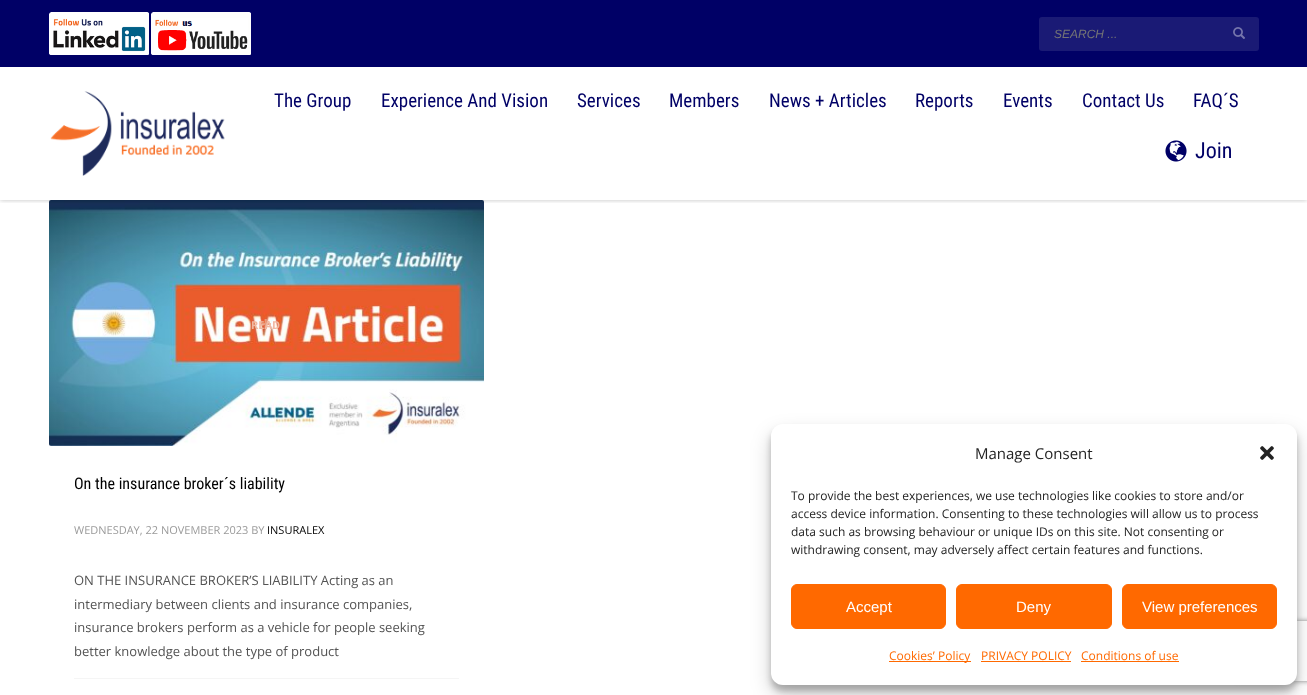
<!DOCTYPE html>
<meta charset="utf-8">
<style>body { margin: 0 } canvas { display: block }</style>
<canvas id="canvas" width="1307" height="695"></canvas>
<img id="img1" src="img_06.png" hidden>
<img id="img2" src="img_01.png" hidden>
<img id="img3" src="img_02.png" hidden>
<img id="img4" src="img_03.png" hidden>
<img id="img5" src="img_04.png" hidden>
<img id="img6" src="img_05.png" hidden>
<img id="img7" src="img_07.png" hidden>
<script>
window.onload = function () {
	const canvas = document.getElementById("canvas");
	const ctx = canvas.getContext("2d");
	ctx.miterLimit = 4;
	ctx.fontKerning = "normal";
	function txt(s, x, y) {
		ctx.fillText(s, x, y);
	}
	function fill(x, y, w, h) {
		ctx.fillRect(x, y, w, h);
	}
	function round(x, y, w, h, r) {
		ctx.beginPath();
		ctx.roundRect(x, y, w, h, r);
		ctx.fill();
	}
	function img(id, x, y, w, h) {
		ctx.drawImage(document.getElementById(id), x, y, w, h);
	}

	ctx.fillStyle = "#FFFFFF";
	fill(0, 0, 1307, 695);
	img("img1", 49, 200, 435, 246);
	ctx.save();
	ctx.beginPath();
	ctx.rect(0, 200, 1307, 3);
	ctx.clip();
	ctx.fillStyle = "rgba(0, 0, 0, 0.25)";
	ctx.filter = "blur(2.5px)";
	ctx.beginPath();
	ctx.rect(0, 0, 1307, 200);
	ctx.fill();
	ctx.filter = "none";
	ctx.restore();
	ctx.fillStyle = "#000066";
	fill(0, 0, 1307, 67);
	img("img2", 49, 12, 100, 43);
	img("img3", 151, 12, 100, 43);
	ctx.fillStyle = "#1A1A75";
	round(1039, 17, 220, 34, 3);
	img("img4", 1233, 27, 12, 12);
	img("img5", 50, 91, 175, 85);
	img("img6", 1165, 140, 22, 22);
	ctx.fillStyle = "#F5F5F5";
	fill(74, 678, 385, 1);
	ctx.fillStyle = "rgba(0, 0, 0, 0.23)";
	ctx.filter = "blur(3px)";
	ctx.beginPath();
	ctx.roundRect(771, 430, 526, 261, 12);
	ctx.fill();
	ctx.filter = "none";
	ctx.fillStyle = "rgba(0, 0, 0, 0.19)";
	ctx.filter = "blur(10px)";
	ctx.beginPath();
	ctx.roundRect(771, 434, 526, 261, 12);
	ctx.fill();
	ctx.filter = "none";
	ctx.save();
	ctx.beginPath();
	ctx.moveTo(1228, 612);
	ctx.lineTo(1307, 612);
	ctx.lineTo(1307, 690);
	ctx.lineTo(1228, 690);
	ctx.closePath();
	ctx.moveTo(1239, 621);
	ctx.lineTo(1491, 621);
	ctx.bezierCurveTo(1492, 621, 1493, 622, 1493, 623);
	ctx.lineTo(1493, 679);
	ctx.bezierCurveTo(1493, 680, 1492, 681, 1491, 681);
	ctx.lineTo(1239, 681);
	ctx.bezierCurveTo(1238, 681, 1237, 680, 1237, 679);
	ctx.lineTo(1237, 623);
	ctx.bezierCurveTo(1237, 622, 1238, 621, 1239, 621);
	ctx.closePath();
	ctx.clip("evenodd");
	ctx.fillStyle = "#808080";
	ctx.filter = "blur(2.5px)";
	ctx.beginPath();
	ctx.roundRect(1237, 621, 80, 60, 2);
	ctx.fill();
	ctx.filter = "none";
	ctx.restore();
	ctx.fillStyle = "#FFFFFF";
	round(771, 424, 526, 261, 12);
	img("img7", 1260, 446, 14, 14);
	ctx.fillStyle = "#FF6900";
	ctx.beginPath();
	ctx.roundRect(791.5, 584.5, 154, 44, 5.5);
	ctx.fill();
	ctx.strokeStyle = "#FF6900";
	ctx.stroke();
	ctx.beginPath();
	ctx.roundRect(956.5, 584.5, 155, 44, 5.5);
	ctx.fill();
	ctx.stroke();
	ctx.beginPath();
	ctx.roundRect(1122.5, 584.5, 154, 44, 5.5);
	ctx.fill();
	ctx.stroke();
	fill(889, 661, 82, 1);
	fill(981, 661, 90, 1);
	fill(1081, 661, 98, 1);
	ctx.font = "italic 12px Liberation Sans";
	ctx.fillStyle = "#757575";
	txt("SEARCH ...", 1054, 38);
	ctx.font = "19px Roboto Condensed";
	ctx.fillStyle = "#000066";
	txt("The Group", 274, 107);
	txt("Experience And Vision", 381, 107);
	txt("Services", 577, 107);
	txt("Members", 669, 107);
	txt("News + Articles", 769, 107);
	txt("Reports", 915, 107);
	txt("Events", 1003, 107);
	txt("Contact Us", 1082, 107);
	txt("FAQ´S", 1193, 107);
	ctx.font = "22px Roboto Condensed";
	txt("Join", 1195, 158);
	ctx.font = "bold 20px Open Sans";
	ctx.fillStyle = "#EA9B7C";
	txt("+", 260, 331);
	ctx.font = "bold 11px Open Sans";
	ctx.fillStyle = "#F0B8A2";
	txt("READ", 251, 329);
	ctx.font = "16px Roboto Condensed";
	ctx.fillStyle = "#000000";
	txt("On the insurance broker´s liability", 74, 489);
	ctx.font = "11px Open Sans";
	ctx.fillStyle = "#9A9A9A";
	txt("WEDNESDAY, 22 NOVEMBER 2023 BY", 74, 534);
	ctx.fillStyle = "#000000";
	txt("INSURALEX", 267, 534);
	ctx.font = "13px Open Sans";
	ctx.fillStyle = "#535353";
	txt("ON THE INSURANCE BROKER’S LIABILITY Acting as an", 74, 585);
	txt("intermediary between clients and insurance companies,", 74, 609);
	txt("insurance brokers perform as a vehicle for people seeking", 74, 632);
	txt("better knowledge about the type of product", 74, 656);
	ctx.font = "15px Open Sans";
	ctx.fillStyle = "#222222";
	txt("Manage Consent", 975, 459);
	ctx.font = "12px Open Sans";
	txt("To provide the best experiences, we use technologies like cookies to store and/or", 791, 500);
	txt("access device information. Consenting to these technologies will allow us to process", 791, 518);
	txt("data such as browsing behaviour or unique IDs on this site. Not consenting or", 791, 536);
	txt("withdrawing consent, may adversely affect certain features and functions.", 791, 554);
	ctx.font = "15px Liberation Sans";
	ctx.fillStyle = "#FFFFFF";
	txt("Accept", 846, 612);
	txt("Deny", 1016, 612);
	txt("View preferences", 1142, 612);
	ctx.font = "12px Open Sans";
	ctx.fillStyle = "#FF6900";
	txt("Cookies’ Policy", 889, 660);
	txt("PRIVACY POLICY", 981, 660);
	txt("Conditions of use", 1081, 660);
};
</script>
